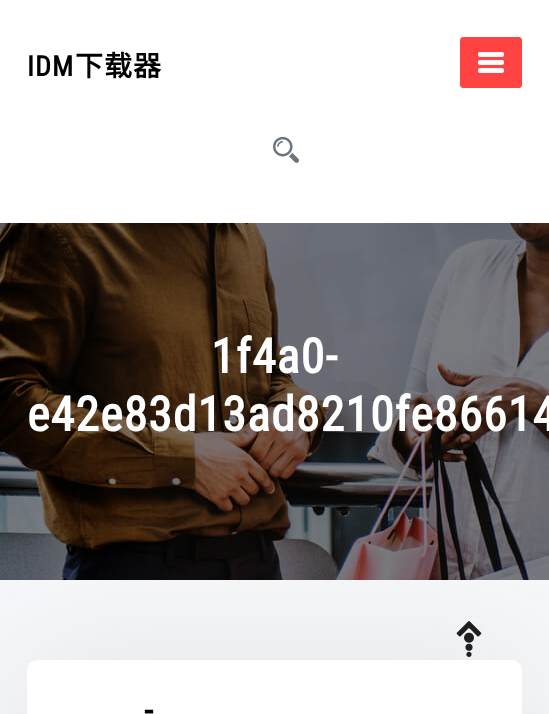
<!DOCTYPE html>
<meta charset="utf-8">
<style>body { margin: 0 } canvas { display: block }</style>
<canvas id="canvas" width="549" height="714"></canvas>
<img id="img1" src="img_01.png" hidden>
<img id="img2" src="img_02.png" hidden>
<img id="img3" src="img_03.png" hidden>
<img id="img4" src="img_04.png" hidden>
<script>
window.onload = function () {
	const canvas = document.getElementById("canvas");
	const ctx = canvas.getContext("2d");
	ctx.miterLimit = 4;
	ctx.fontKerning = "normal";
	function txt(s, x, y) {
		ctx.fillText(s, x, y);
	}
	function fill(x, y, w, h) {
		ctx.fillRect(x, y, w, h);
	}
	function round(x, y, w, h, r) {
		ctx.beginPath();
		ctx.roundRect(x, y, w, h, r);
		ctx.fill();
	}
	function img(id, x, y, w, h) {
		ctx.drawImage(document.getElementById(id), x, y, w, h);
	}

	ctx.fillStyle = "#F6F7F9";
	fill(0, 0, 549, 714);
	ctx.fillStyle = "#FFFFFF";
	fill(0, 0, 549, 223);
	ctx.fillStyle = "#FF4343";
	ctx.beginPath();
	ctx.roundRect(460.5, 37.5, 61, 50, 2.5);
	ctx.fill();
	ctx.strokeStyle = "#FF4343";
	ctx.stroke();
	img("img1", 477, 52, 28, 21);
	img("img2", 273, 136, 26, 27);
	img("img3", 0, 223, 549, 357);
	ctx.fillStyle = "rgba(74, 74, 74, 0.1)";
	ctx.filter = "blur(65.5px)";
	ctx.beginPath();
	ctx.roundRect(27, 660, 495, 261, 10);
	ctx.fill();
	ctx.filter = "none";
	img("img4", 456, 621, 26, 36);
	ctx.fillStyle = "#FFFFFF";
	round(27, 660, 495, 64, 10);
	ctx.letterSpacing = "1px";
	ctx.font = "bold 28px Roboto Condensed";
	ctx.fillStyle = "#000000";
	txt("IDM", 27, 76);
	ctx.font = "bold 28px Noto Sans CJK SC";
	txt("下载器", 75, 76);
	ctx.font = "bold 48px Roboto Condensed";
	ctx.fillStyle = "#FFFFFF";
	txt("1f4a0-", 211, 373);
	txt("e42e83d13ad8210fe86614", 27, 431);
	ctx.font = "bold 36px Roboto Condensed";
	ctx.fillStyle = "#000000";
	txt("-", 144, 723);
};
</script>
